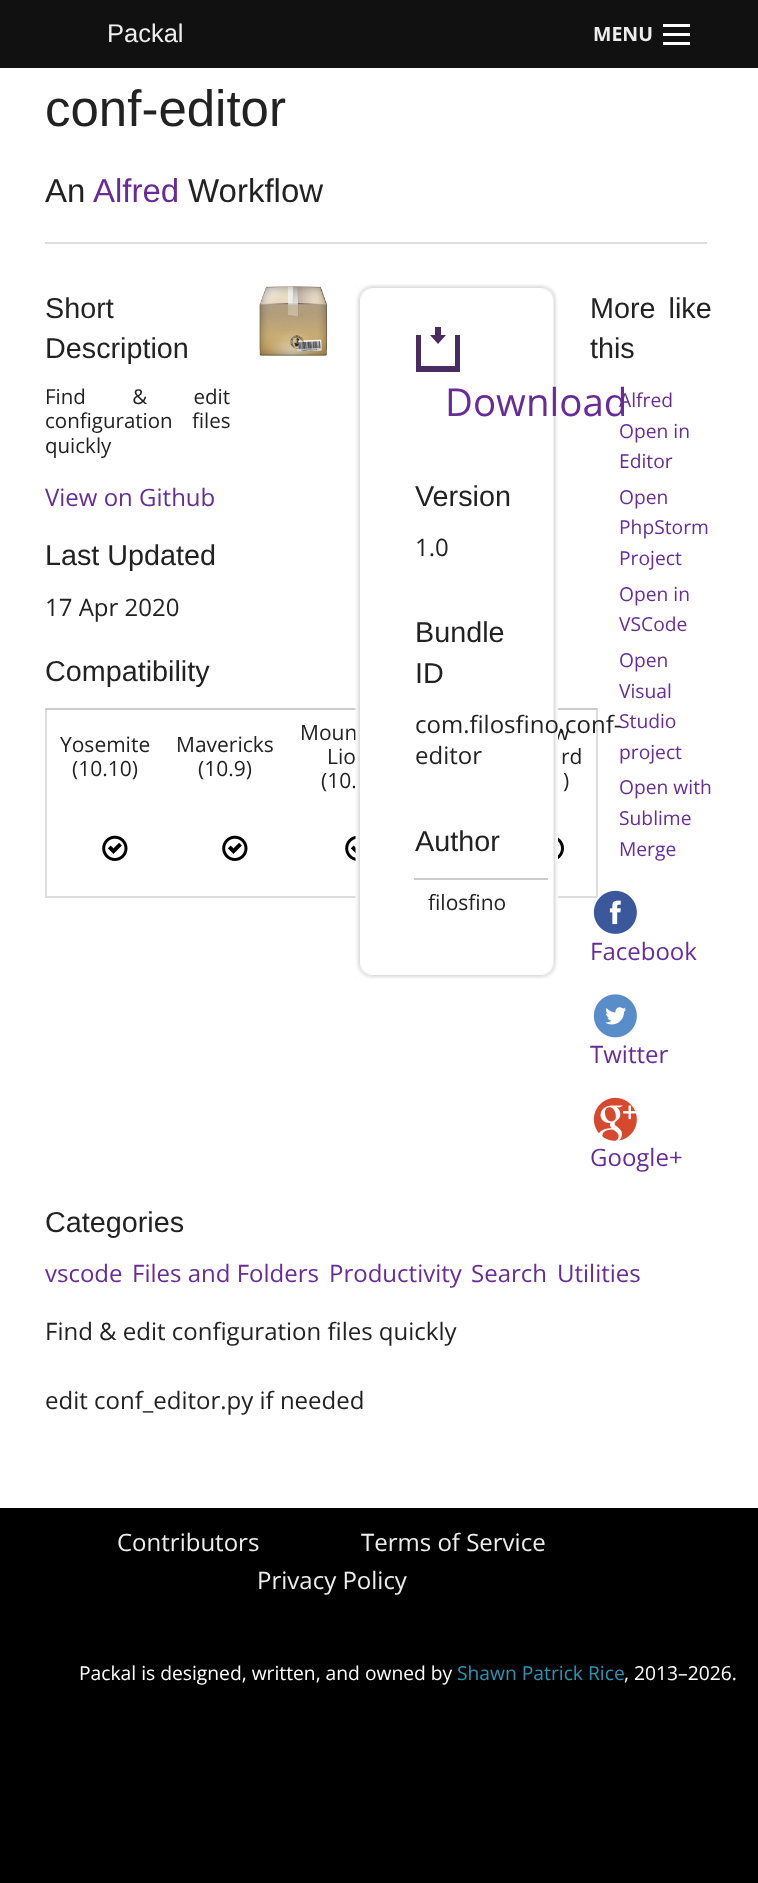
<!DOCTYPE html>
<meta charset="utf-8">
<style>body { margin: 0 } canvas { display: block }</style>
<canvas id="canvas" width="758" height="1883"></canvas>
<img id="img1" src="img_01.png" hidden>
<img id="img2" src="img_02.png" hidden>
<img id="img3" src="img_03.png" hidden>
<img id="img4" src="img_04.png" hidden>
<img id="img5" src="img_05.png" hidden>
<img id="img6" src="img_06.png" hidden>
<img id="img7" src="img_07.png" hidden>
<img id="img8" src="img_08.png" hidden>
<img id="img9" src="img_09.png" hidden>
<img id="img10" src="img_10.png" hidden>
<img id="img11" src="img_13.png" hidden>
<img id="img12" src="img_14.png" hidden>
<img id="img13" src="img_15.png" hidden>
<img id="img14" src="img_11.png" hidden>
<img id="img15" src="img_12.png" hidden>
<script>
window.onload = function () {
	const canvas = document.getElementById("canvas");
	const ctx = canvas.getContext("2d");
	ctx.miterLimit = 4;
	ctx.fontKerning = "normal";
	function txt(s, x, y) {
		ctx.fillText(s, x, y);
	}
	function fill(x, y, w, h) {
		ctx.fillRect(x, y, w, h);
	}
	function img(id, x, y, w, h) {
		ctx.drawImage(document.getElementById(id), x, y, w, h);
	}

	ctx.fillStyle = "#000000";
	fill(0, 0, 758, 1883);
	ctx.fillStyle = "#FFFFFF";
	fill(0, 68, 758, 1440);
	ctx.fillStyle = "#111111";
	fill(0, 0, 758, 68);
	ctx.fillStyle = "#FFFFFF";
	fill(663, 42, 27, 3);
	fill(663, 33, 27, 3);
	fill(663, 24, 27, 3);
	ctx.fillStyle = "#DDDDDD";
	fill(45, 242, 662, 2);
	img("img1", 259, 286, 68, 70);
	fill(596, 708, 2, 189);
	fill(45, 896, 552, 2);
	fill(45, 708, 2, 189);
	ctx.fillStyle = "#CCCCCC";
	fill(45, 708, 552, 2);
	img("img2", 102, 835, 26, 26);
	img("img2", 222, 835, 26, 26);
	img("img3", 345, 835, 11, 26);
	img("img4", 558, 837, 6, 22);
	img("img5", 593, 890, 44, 44);
	img("img6", 593, 994, 44, 44);
	img("img7", 593, 1097, 44, 44);
	img("img8", 355, 284, 187, 4);
	img("img9", 355, 284, 17, 16);
	img("img10", 541, 284, 17, 16);
	ctx.fillStyle = "#492C61";
	ctx.beginPath();
	ctx.moveTo(446, 335);
	ctx.lineTo(441, 335);
	ctx.lineTo(441, 327);
	ctx.lineTo(435, 327);
	ctx.lineTo(435, 335);
	ctx.lineTo(430, 335);
	ctx.lineTo(438, 344);
	ctx.closePath();
	ctx.moveTo(455, 335);
	ctx.lineTo(455, 366);
	ctx.lineTo(421, 366);
	ctx.lineTo(421, 335);
	ctx.lineTo(416, 335);
	ctx.lineTo(416, 372);
	ctx.lineTo(460, 372);
	ctx.lineTo(460, 335);
	ctx.closePath();
	ctx.fill();
	img("img11", 355, 975, 187, 4);
	img("img12", 355, 963, 17, 16);
	img("img13", 542, 963, 16, 16);
	ctx.font = "25.5px Liberation Sans";
	ctx.fillStyle = "#EDEDED";
	txt("Packal", 107, 42);
	ctx.font = "bold 19.5px Open Sans";
	txt("MENU", 593, 41);
	ctx.font = "51px Liberation Sans";
	ctx.fillStyle = "#222222";
	txt("conf-editor", 45, 126);
	ctx.font = "33px Liberation Sans";
	txt("An", 45, 202);
	ctx.fillStyle = "#672C98";
	txt("Alfred", 93, 202);
	ctx.fillStyle = "#222222";
	txt("Workflow", 188, 202);
	ctx.font = "28.75px Liberation Sans";
	txt("Short", 45, 318);
	txt("Description", 45, 358);
	ctx.wordSpacing = "41px";
	ctx.font = "20.5px Open Sans";
	txt("Find & edit", 45, 404);
	ctx.wordSpacing = "14px";
	txt("configuration files", 45, 428);
	ctx.wordSpacing = "0px";
	txt("quickly", 45, 453);
	ctx.font = "24px Open Sans";
	ctx.fillStyle = "#672C98";
	txt("View on Github", 45, 506);
	ctx.font = "28.75px Liberation Sans";
	ctx.fillStyle = "#222222";
	txt("Last Updated", 45, 565);
	ctx.font = "24px Open Sans";
	txt("17 Apr 2020", 45, 616);
	ctx.font = "28.75px Liberation Sans";
	txt("Compatibility", 45, 681);
	ctx.font = "21px Open Sans";
	txt("Yosemite", 60, 752);
	txt("(10.10)", 72, 776);
	txt("Mavericks", 176, 752);
	txt("(10.9)", 198, 776);
	txt("Moun", 300, 740);
	txt("Lio", 327, 764);
	txt("(10.", 321, 788);
	txt("w", 553, 740);
	txt("rd", 561, 764);
	txt(")", 563, 788);
	ctx.wordSpacing = "5px";
	ctx.font = "28.75px Liberation Sans";
	txt("More like", 590, 318);
	ctx.wordSpacing = "0px";
	txt("this", 590, 358);
	ctx.font = "19.25px Open Sans";
	ctx.fillStyle = "#672C98";
	txt("Alfred", 619, 407);
	txt("Open in", 619, 438);
	txt("Editor", 619, 468);
	txt("Open", 619, 504);
	txt("PhpStorm", 619, 534);
	txt("Project", 619, 565);
	txt("Open in", 619, 601);
	txt("VSCode", 619, 631);
	txt("Open", 619, 667);
	txt("Visual", 619, 698);
	txt("Studio", 619, 728);
	txt("project", 619, 759);
	txt("Open with", 619, 794);
	txt("Sublime", 619, 825);
	txt("Merge", 619, 856);
	ctx.font = "24px Open Sans";
	txt("Facebook", 590, 960);
	txt("Twitter", 590, 1063);
	txt("Google+", 590, 1166);
	ctx.fillStyle = "#FFFFFF";
	fill(356, 708, 202, 190);
	img("img14", 355, 300, 5, 663);
	img("img15", 553, 300, 5, 663);
	ctx.font = "38.5px Open Sans";
	ctx.fillStyle = "#672C98";
	txt("Download", 445, 416);
	ctx.font = "28.75px Liberation Sans";
	ctx.fillStyle = "#222222";
	txt("Version", 415, 506);
	ctx.font = "24px Open Sans";
	txt("1.0", 415, 556);
	ctx.font = "28.75px Liberation Sans";
	txt("Bundle", 415, 642);
	txt("ID", 415, 683);
	ctx.font = "24px Open Sans";
	txt("com.filosfino.conf-", 415, 733);
	txt("editor", 415, 764);
	ctx.font = "28.75px Liberation Sans";
	txt("Author", 415, 851);
	ctx.fillStyle = "#CCCCCC";
	fill(414, 878, 134, 2);
	ctx.font = "21px Open Sans";
	ctx.fillStyle = "#222222";
	txt("filosfino", 428, 910);
	ctx.font = "28.75px Liberation Sans";
	txt("Categories", 45, 1232);
	ctx.font = "24px Open Sans";
	ctx.fillStyle = "#672C98";
	txt("vscode", 45, 1282);
	txt("Files and Folders", 132, 1282);
	txt("Productivity", 329, 1282);
	txt("Search", 471, 1282);
	txt("Utilities", 557, 1282);
	ctx.fillStyle = "#222222";
	txt("Find & edit configuration files quickly", 45, 1340);
	txt("edit conf_editor.py if needed", 45, 1409);
	ctx.fillStyle = "#EDEDED";
	txt("Contributors", 117, 1551);
	txt("Terms of Service", 361, 1551);
	txt("Privacy Policy", 257, 1589);
	ctx.font = "19.25px Open Sans";
	ctx.fillStyle = "#FFFFFF";
	txt("Packal is designed, written, and owned by", 79, 1680);
	ctx.fillStyle = "#2795B6";
	txt("Shawn Patrick Rice", 457, 1680);
	ctx.fillStyle = "#FFFFFF";
	txt(", 2013–2026.", 624, 1680);
};
</script>
